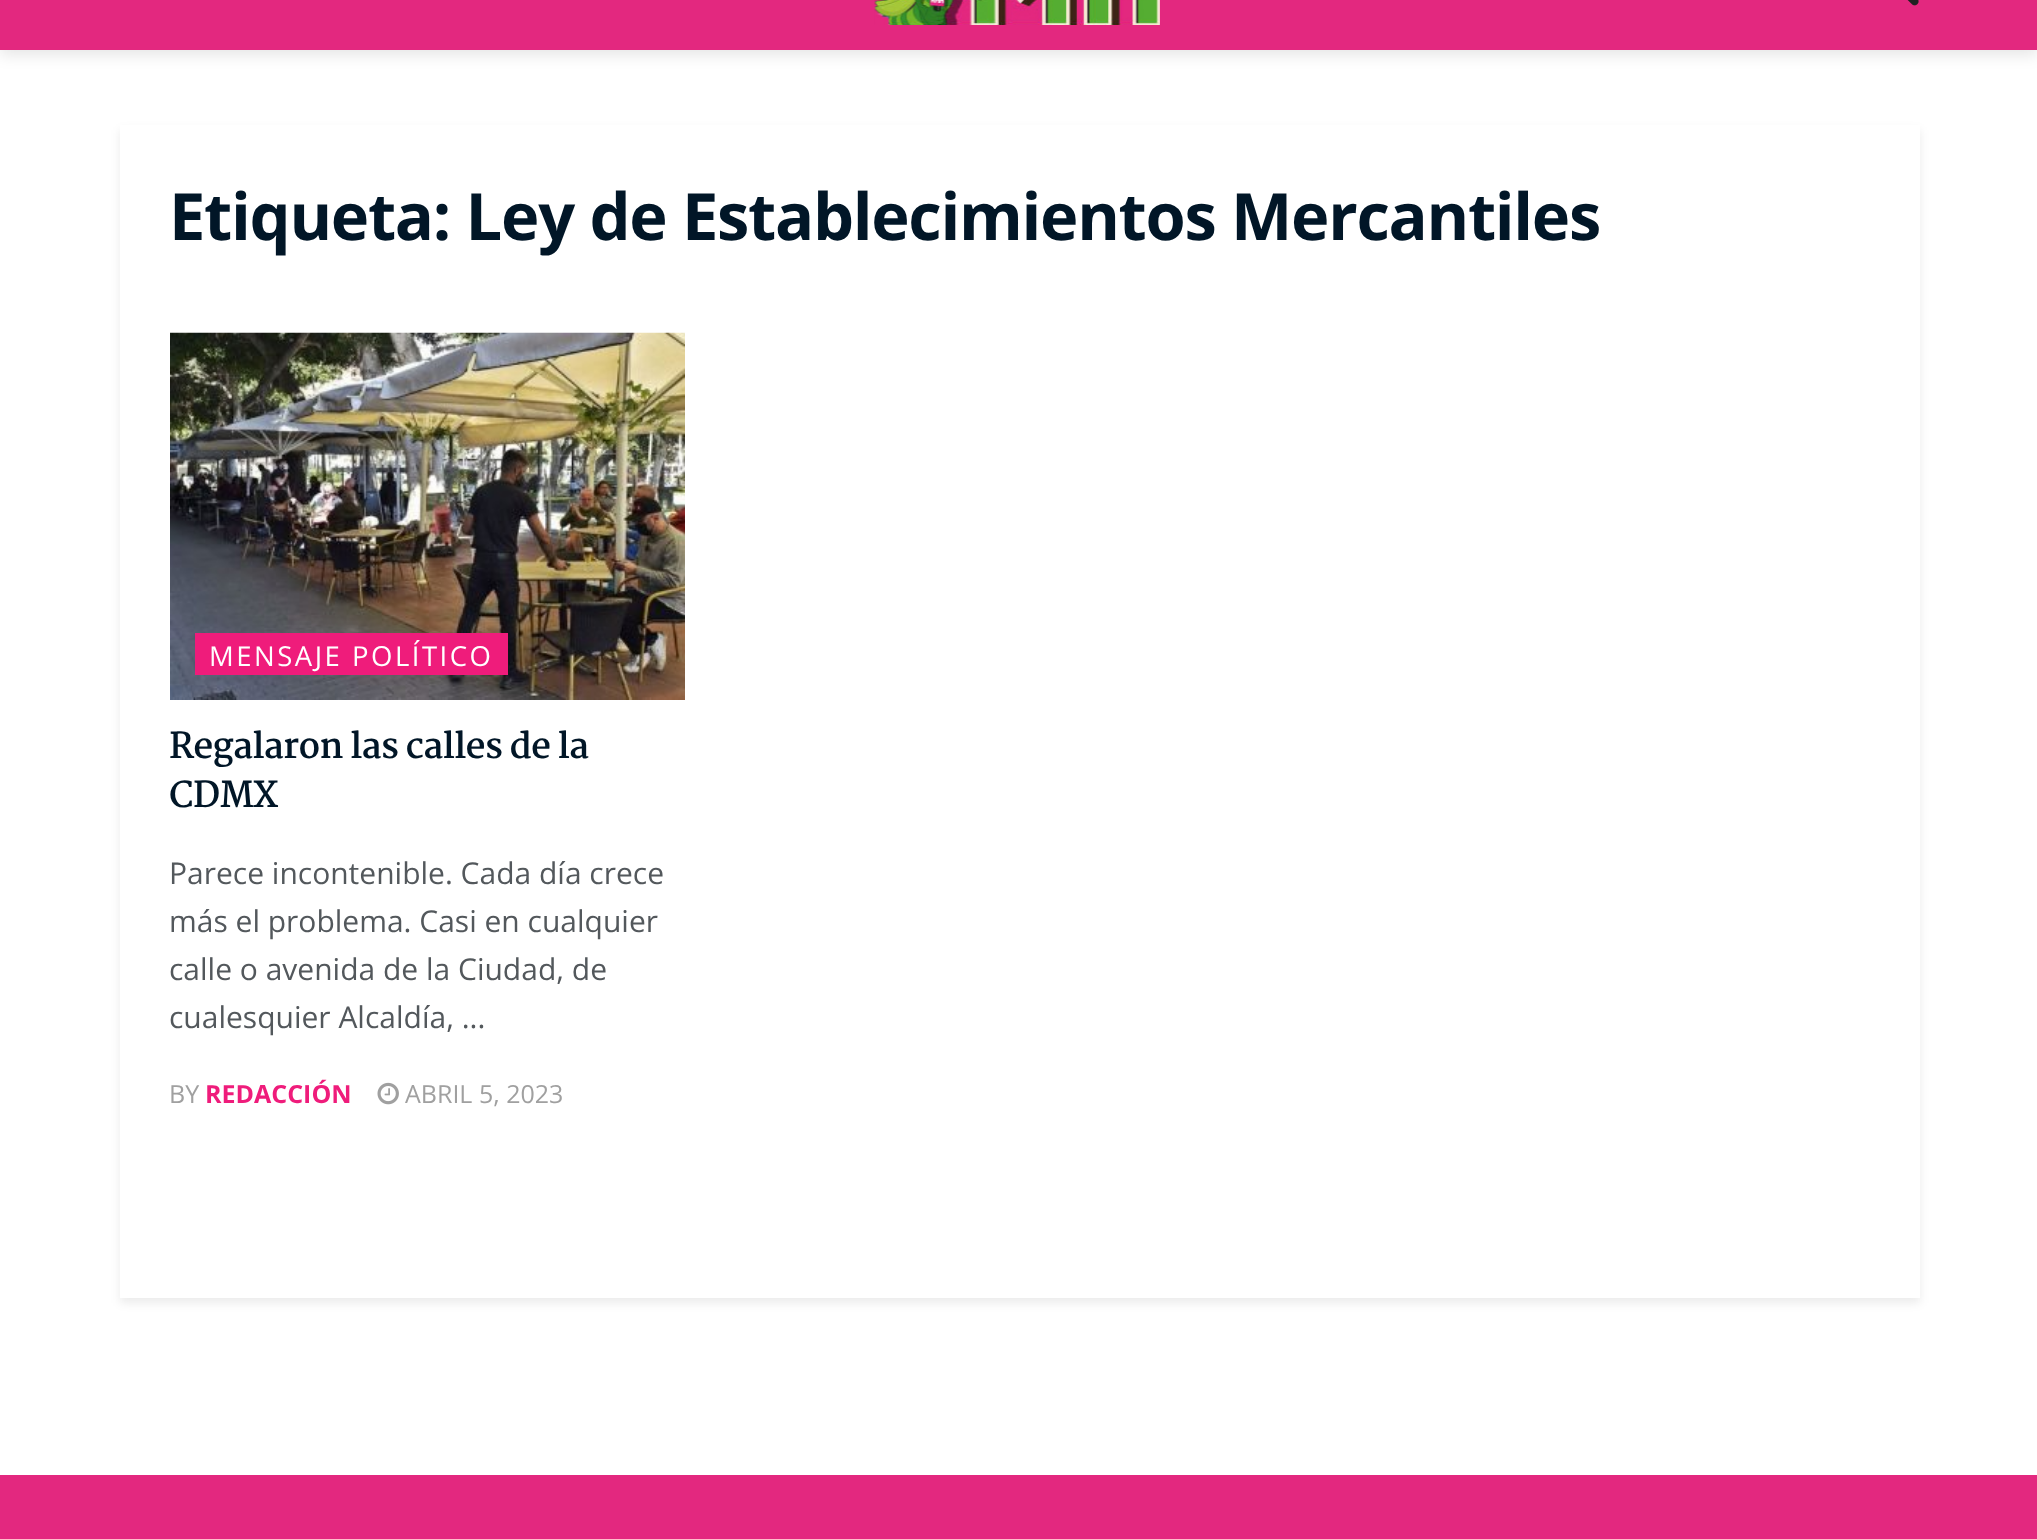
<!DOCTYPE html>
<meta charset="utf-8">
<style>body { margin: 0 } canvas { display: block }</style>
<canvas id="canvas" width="2037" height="1539"></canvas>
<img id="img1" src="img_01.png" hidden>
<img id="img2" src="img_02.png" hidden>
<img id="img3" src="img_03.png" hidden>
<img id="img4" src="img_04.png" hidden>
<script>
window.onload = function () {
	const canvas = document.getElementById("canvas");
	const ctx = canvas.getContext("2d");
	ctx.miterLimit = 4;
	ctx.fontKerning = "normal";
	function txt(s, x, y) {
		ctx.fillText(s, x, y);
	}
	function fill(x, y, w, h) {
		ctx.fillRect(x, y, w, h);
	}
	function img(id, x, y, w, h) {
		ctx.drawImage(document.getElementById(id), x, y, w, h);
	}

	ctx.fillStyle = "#FFFFFF";
	fill(0, 0, 2037, 1539);
	ctx.fillStyle = "rgba(0, 0, 0, 0.1)";
	ctx.filter = "blur(7.5px)";
	ctx.beginPath();
	ctx.rect(0, -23, 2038, 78);
	ctx.fill();
	ctx.filter = "none";
	ctx.fillStyle = "#E3287F";
	fill(0, 0, 2037, 50);
	img("img1", 874, 0, 286, 25);
	img("img2", 1907, 0, 12, 6);
	ctx.fillStyle = "rgba(0, 0, 0, 0.08)";
	ctx.filter = "blur(5px)";
	ctx.beginPath();
	ctx.rect(120, 130, 1800, 1173);
	ctx.fill();
	ctx.filter = "none";
	ctx.fillStyle = "#FFFFFF";
	fill(120, 125, 1800, 1173);
	img("img3", 170, 332, 515, 368);
	ctx.fillStyle = "#EF1C7B";
	fill(195, 633, 313, 42);
	img("img4", 377, 1082, 22, 23);
	ctx.fillStyle = "#E3287F";
	fill(0, 1475, 2037, 64);
	ctx.letterSpacing = "-1.3px";
	ctx.font = "bold 65px Open Sans";
	ctx.fillStyle = "#011627";
	txt("Etiqueta: Ley de Establecimientos Mercantiles", 169, 240);
	ctx.letterSpacing = "2.5px";
	ctx.font = "27.5px Open Sans";
	ctx.fillStyle = "#FFFFFF";
	txt("MENSAJE POLÍTICO", 209, 666);
	ctx.letterSpacing = "-0.7px";
	ctx.font = "bold 35px Martel";
	ctx.fillStyle = "#011627";
	txt("Regalaron las calles de la", 169, 758);
	txt("CDMX", 169, 807);
	ctx.letterSpacing = "0px";
	ctx.font = "30px Open Sans";
	ctx.fillStyle = "#53585C";
	txt("Parece incontenible. Cada día crece", 169, 884);
	txt("más el problema. Casi en cualquier", 169, 932);
	txt("calle o avenida de la Ciudad, de", 169, 980);
	txt("cualesquier Alcaldía, ...", 169, 1028);
	ctx.font = "25px Open Sans";
	ctx.fillStyle = "#A0A0A0";
	txt("BY", 169, 1103);
	ctx.font = "bold 25px Open Sans";
	ctx.fillStyle = "#EF1C7B";
	txt("REDACCIÓN", 205, 1103);
	ctx.font = "25px Open Sans";
	ctx.fillStyle = "#A0A0A0";
	txt("ABRIL 5, 2023", 405, 1103);
};
</script>
